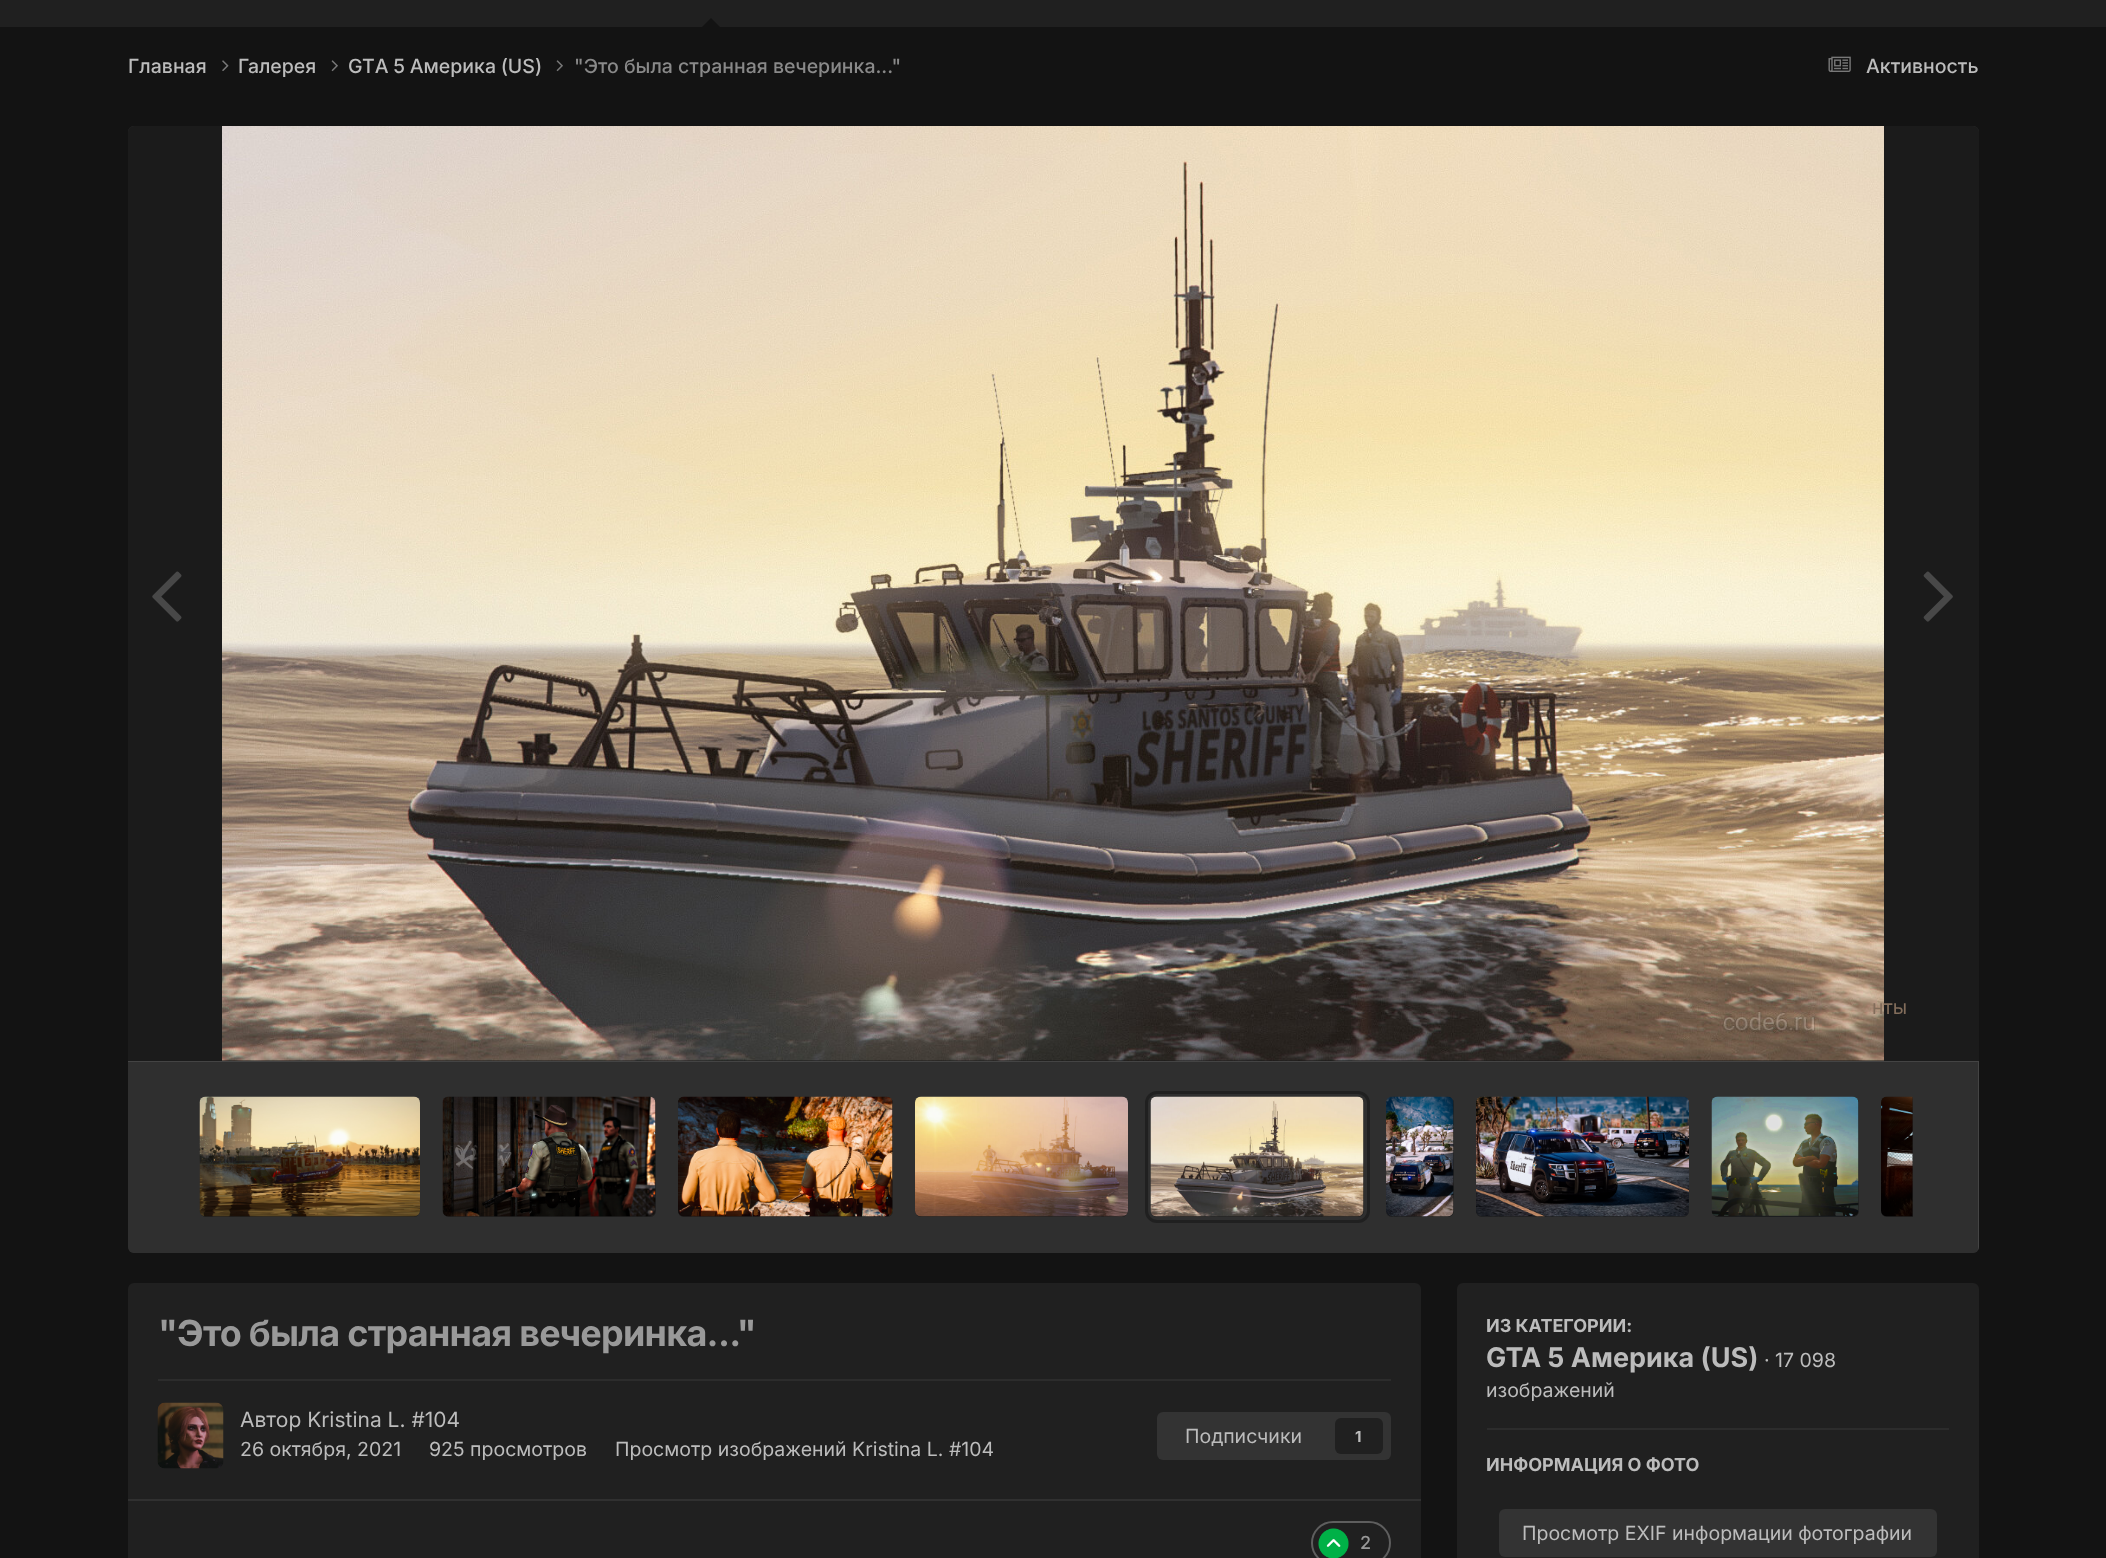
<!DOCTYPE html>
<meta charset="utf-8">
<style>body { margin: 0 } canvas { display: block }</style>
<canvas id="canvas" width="2106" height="1558"></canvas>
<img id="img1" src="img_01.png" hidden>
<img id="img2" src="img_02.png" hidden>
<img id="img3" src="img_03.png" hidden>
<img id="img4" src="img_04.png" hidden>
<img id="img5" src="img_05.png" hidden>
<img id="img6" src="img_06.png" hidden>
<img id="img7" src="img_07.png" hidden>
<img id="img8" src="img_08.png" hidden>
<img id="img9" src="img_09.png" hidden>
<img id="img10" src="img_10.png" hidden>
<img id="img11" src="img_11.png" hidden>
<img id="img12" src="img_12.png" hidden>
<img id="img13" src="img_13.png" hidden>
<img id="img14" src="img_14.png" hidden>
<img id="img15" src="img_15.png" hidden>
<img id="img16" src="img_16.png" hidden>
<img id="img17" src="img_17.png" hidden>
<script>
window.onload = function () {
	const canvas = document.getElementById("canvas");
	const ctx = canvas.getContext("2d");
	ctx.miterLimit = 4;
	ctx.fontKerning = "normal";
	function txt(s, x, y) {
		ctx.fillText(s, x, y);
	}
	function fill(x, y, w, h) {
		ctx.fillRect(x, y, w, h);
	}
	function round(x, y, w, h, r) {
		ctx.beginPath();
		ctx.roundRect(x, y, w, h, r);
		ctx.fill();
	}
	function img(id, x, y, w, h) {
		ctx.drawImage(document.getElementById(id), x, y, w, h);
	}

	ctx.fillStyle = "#131313";
	fill(0, 0, 2106, 1558);
	ctx.fillStyle = "#202020";
	fill(0, 0, 2106, 27);
	ctx.fillStyle = "#131313";
	ctx.beginPath();
	ctx.moveTo(720, 27);
	ctx.lineTo(702, 27);
	ctx.lineTo(711, 18);
	ctx.closePath();
	ctx.fill();
	img("img1", 222, 60, 7, 11);
	img("img2", 331, 60, 7, 12);
	img("img2", 556, 60, 7, 12);
	img("img3", 1828, 56, 23, 16);
	ctx.fillStyle = "#444444";
	ctx.beginPath();
	ctx.roundRect(128, 126, 1851, 935, [6, 6, 0, 0]);
	ctx.fill();
	ctx.fillStyle = "rgba(0, 0, 0, 0.6)";
	ctx.beginPath();
	ctx.roundRect(128, 126, 1851, 935, [6, 6, 0, 0]);
	ctx.fill();
	img("img4", 222, 126, 1662, 935);
	img("img5", 152, 571, 30, 51);
	img("img6", 1923, 571, 30, 51);
	ctx.fillStyle = "#444444";
	ctx.beginPath();
	ctx.roundRect(128, 1061, 1851, 192, [0, 0, 6, 6]);
	ctx.fill();
	ctx.fillStyle = "rgba(0, 0, 0, 0.3)";
	ctx.beginPath();
	ctx.roundRect(128, 1061, 1851, 192, [0, 0, 6, 6]);
	ctx.fill();
	ctx.fillStyle = "rgba(255, 255, 255, 0.1)";
	ctx.beginPath();
	ctx.moveTo(128, 1062);
	ctx.lineTo(1978, 1062);
	ctx.lineTo(1978, 1248);
	ctx.bezierCurveTo(1978, 1249, 1978, 1250, 1977, 1251);
	ctx.bezierCurveTo(1978, 1250, 1979, 1249, 1979, 1247);
	ctx.lineTo(1979, 1061);
	ctx.lineTo(128, 1061);
	ctx.closePath();
	ctx.fill();
	ctx.fillStyle = "#141414";
	round(200, 1097, 220, 120, 6);
	ctx.fillStyle = "rgba(68, 68, 68, 0.3)";
	round(200, 1097, 220, 120, 6);
	img("img7", 199, 1096, 221, 121);
	ctx.fillStyle = "#141414";
	round(443, 1097, 213, 120, 6);
	ctx.fillStyle = "rgba(68, 68, 68, 0.3)";
	round(443, 1097, 213, 120, 6);
	img("img8", 442, 1096, 214, 121);
	ctx.fillStyle = "#141414";
	round(678, 1097, 215, 120, 6);
	ctx.fillStyle = "rgba(68, 68, 68, 0.3)";
	round(678, 1097, 215, 120, 6);
	img("img9", 678, 1096, 215, 121);
	ctx.fillStyle = "#141414";
	round(915, 1097, 213, 120, 6);
	ctx.fillStyle = "rgba(68, 68, 68, 0.3)";
	round(915, 1097, 213, 120, 6);
	img("img10", 915, 1096, 213, 121);
	ctx.fillStyle = "#141414";
	round(1151, 1097, 213, 120, 6);
	ctx.fillStyle = "rgba(68, 68, 68, 0.3)";
	round(1151, 1097, 213, 120, 6);
	ctx.beginPath();
	ctx.roundRect(1146.5, 1092.5, 222, 129, 10.5);
	ctx.strokeStyle = "#202020";
	ctx.lineWidth = 3;
	ctx.stroke();
	img("img11", 1150, 1096, 214, 121);
	ctx.fillStyle = "#141414";
	round(1386, 1097, 68, 120, 6);
	ctx.fillStyle = "rgba(68, 68, 68, 0.3)";
	round(1386, 1097, 68, 120, 6);
	img("img12", 1386, 1096, 68, 121);
	ctx.fillStyle = "#141414";
	round(1476, 1097, 213, 120, 6);
	ctx.fillStyle = "rgba(68, 68, 68, 0.3)";
	round(1476, 1097, 213, 120, 6);
	img("img13", 1476, 1096, 213, 121);
	ctx.fillStyle = "#141414";
	round(1712, 1097, 147, 120, 6);
	ctx.fillStyle = "rgba(68, 68, 68, 0.3)";
	round(1712, 1097, 147, 120, 6);
	img("img14", 1711, 1096, 148, 121);
	ctx.fillStyle = "#141414";
	ctx.beginPath();
	ctx.roundRect(1881, 1097, 32, 120, [6, 0, 0, 6]);
	ctx.fill();
	ctx.fillStyle = "rgba(68, 68, 68, 0.3)";
	ctx.beginPath();
	ctx.roundRect(1881, 1097, 32, 120, [6, 0, 0, 6]);
	ctx.fill();
	img("img15", 1881, 1096, 32, 121);
	ctx.fillStyle = "#202020";
	round(128, 1283, 1293, 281, 6);
	ctx.fillStyle = "#2C2C2C";
	fill(158, 1379, 1233, 2);
	img("img16", 157, 1402, 67, 67);
	ctx.fillStyle = "#333333";
	round(1157, 1412, 234, 48, 6);
	ctx.fillStyle = "#202020";
	round(1335, 1418, 48, 36, 6);
	ctx.fillStyle = "#303030";
	fill(128, 1499, 1293, 2);
	ctx.beginPath();
	ctx.roundRect(1312, 1522, 78, 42, 21);
	ctx.strokeStyle = "#5E5E5E";
	ctx.lineWidth = 2;
	ctx.stroke();
	img("img17", 1318, 1528, 31, 30);
	ctx.fillStyle = "#202020";
	round(1457, 1283, 522, 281, 6);
	ctx.fillStyle = "#2C2C2C";
	fill(1487, 1428, 462, 2);
	ctx.fillStyle = "#333333";
	round(1499, 1509, 438, 48, 6);
	ctx.font = "500 19.5px Inter";
	ctx.fillStyle = "#BCBCBC";
	txt("Главная", 128, 73);
	txt("Галерея", 238, 73);
	ctx.wordSpacing = "-0.5px";
	txt("GTA 5 Америка (US)", 348, 73);
	ctx.wordSpacing = "0px";
	ctx.fillStyle = "#898989";
	txt("\"Это была странная вечеринка...\"", 574, 73);
	ctx.fillStyle = "#BCBCBC";
	txt("Активность", 1866, 73);
	ctx.font = "19.5px Inter";
	ctx.fillStyle = "#826D5B";
	txt("нты", 1872, 1014);
	ctx.letterSpacing = "-0.75px";
	ctx.font = "bold 36px Inter";
	ctx.fillStyle = "#999999";
	txt("\"Это была странная вечеринка...\"", 158, 1346);
	ctx.letterSpacing = "0px";
	ctx.font = "21px Inter";
	ctx.fillStyle = "#BCBCBC";
	txt("Автор Kristina L. #104", 240, 1427);
	ctx.font = "19.5px Inter";
	txt("26 октября, 2021", 240, 1456);
	txt("925 просмотров", 429, 1456);
	txt("Просмотр изображений Kristina L. #104", 615, 1456);
	txt("Подписчики", 1185, 1443);
	ctx.font = "bold 15px Inter";
	txt("1", 1355, 1442);
	ctx.font = "500 18px Inter";
	ctx.fillStyle = "#999999";
	txt("2", 1360, 1549);
	ctx.font = "bold 18px Inter";
	ctx.fillStyle = "#BCBCBC";
	txt("ИЗ КАТЕГОРИИ:", 1486, 1332);
	ctx.font = "bold 27px Inter";
	txt("GTA 5 Америка (US)", 1486, 1367);
	ctx.font = "19.5px Inter";
	txt("· 17 098", 1764, 1367);
	txt("изображений", 1486, 1397);
	ctx.font = "bold 18px Inter";
	txt("ИНФОРМАЦИЯ О ФОТО", 1486, 1471);
	ctx.font = "19.5px Inter";
	txt("Просмотр EXIF информации фотографии", 1522, 1540);
};
</script>
